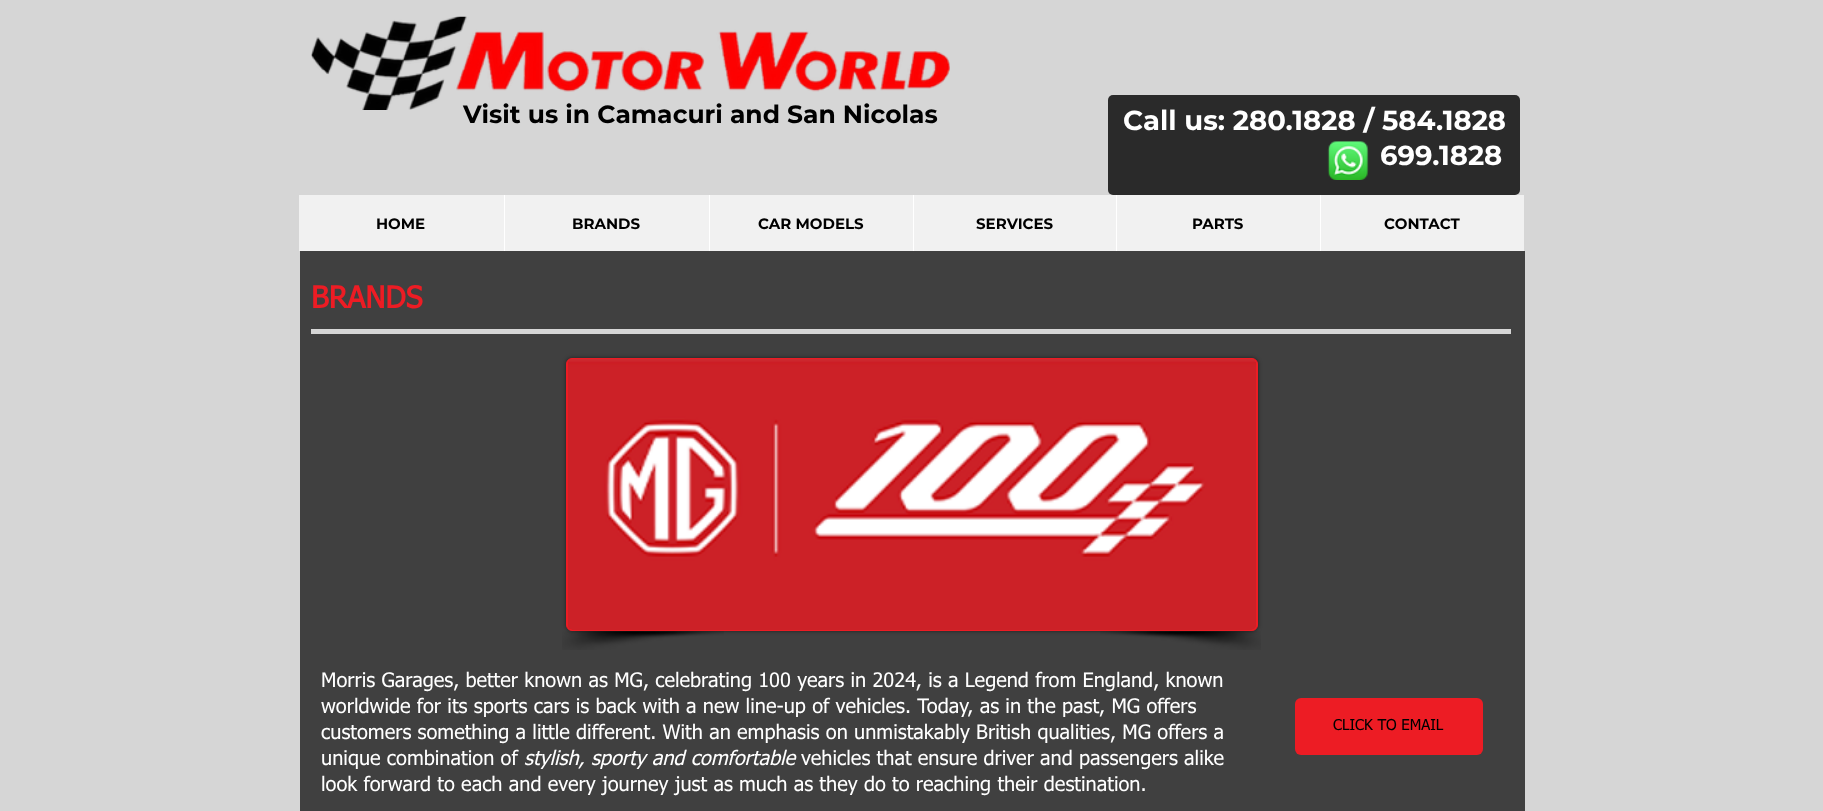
<!DOCTYPE html>
<meta charset="utf-8">
<style>body { margin: 0 } canvas { display: block }</style>
<canvas id="canvas" width="1823" height="811"></canvas>
<img id="img1" src="img_01.png" hidden>
<img id="img2" src="img_02.png" hidden>
<img id="img3" src="img_03.png" hidden>
<img id="img4" src="img_04.png" hidden>
<img id="img5" src="img_05.png" hidden>
<script>
window.onload = function () {
	const canvas = document.getElementById("canvas");
	const ctx = canvas.getContext("2d");
	ctx.miterLimit = 4;
	ctx.fontKerning = "normal";
	function txt(s, x, y) {
		ctx.fillText(s, x, y);
	}
	function fill(x, y, w, h) {
		ctx.fillRect(x, y, w, h);
	}
	function round(x, y, w, h, r) {
		ctx.beginPath();
		ctx.roundRect(x, y, w, h, r);
		ctx.fill();
	}
	function img(id, x, y, w, h) {
		ctx.drawImage(document.getElementById(id), x, y, w, h);
	}

	ctx.fillStyle = "#D6D6D6";
	fill(0, 0, 1823, 811);
	img("img1", 311, 16, 639, 94);
	ctx.fillStyle = "#2A2A2A";
	round(1108, 95, 412, 100, 5);
	img("img2", 1327, 141, 42, 39);
	ctx.fillStyle = "#F1F1F1";
	fill(299, 195, 1225, 56);
	ctx.fillStyle = "#FFFFFF";
	fill(504, 195, 1, 56);
	fill(709, 195, 1, 56);
	fill(913, 195, 1, 56);
	fill(1116, 195, 1, 56);
	fill(1320, 195, 1, 56);
	ctx.fillStyle = "#404040";
	fill(300, 251, 1225, 560);
	ctx.fillStyle = "#D6D6D6";
	fill(311, 329, 1200, 5);
	ctx.fillStyle = "rgba(0, 0, 0, 0.5)";
	ctx.filter = "blur(2px)";
	ctx.beginPath();
	ctx.roundRect(566, 358, 692, 273, 6);
	ctx.fill();
	ctx.filter = "none";
	ctx.fillStyle = "#ED1C24";
	ctx.beginPath();
	ctx.roundRect(566.5, 358.5, 691, 272, 5.5);
	ctx.fill();
	ctx.strokeStyle = "#ED1C24";
	ctx.stroke();
	img("img3", 568, 359, 688, 271);
	img("img4", 562, 631, 162, 19);
	img("img5", 1100, 631, 161, 19);
	round(1295, 698, 188, 57, 6);
	ctx.font = "bold 25px Montserrat";
	ctx.fillStyle = "#000000";
	txt("Visit us in Camacuri and San Nicolas", 463, 123);
	ctx.font = "bold 27.5px Montserrat";
	ctx.fillStyle = "#FFFFFF";
	txt("Call us: 280.1828 / 584.1828", 1123, 130);
	txt("699.1828", 1380, 165);
	ctx.font = "bold 15px Montserrat";
	ctx.fillStyle = "#000000";
	txt("HOME", 376, 229);
	txt("BRANDS", 572, 229);
	txt("CAR MODELS", 758, 229);
	txt("SERVICES", 976, 229);
	txt("PARTS", 1192, 229);
	txt("CONTACT", 1384, 229);
	ctx.font = "bold 30px tahoma";
	ctx.fillStyle = "#ED1C24";
	txt("BRANDS", 311, 308);
	ctx.font = "20px tahoma";
	ctx.fillStyle = "#FFFFFF";
	txt("Morris Garages, better known as MG, celebrating 100 years in 2024, is a Legend from England, known", 321, 687);
	txt("worldwide for its sports cars is back with a new line-up of vehicles. Today, as in the past, MG offers", 321, 713);
	txt("customers something a little different. With an emphasis on unmistakably British qualities, MG offers a", 321, 739);
	txt("unique combination of", 321, 765);
	ctx.font = "italic 20px tahoma";
	txt("stylish, sporty and comfortable", 524, 765);
	ctx.font = "20px tahoma";
	txt("vehicles that ensure driver and passengers alike", 801, 765);
	txt("look forward to each and every journey just as much as they do to reaching their destination.", 321, 791);
	ctx.font = "15px tahoma";
	ctx.fillStyle = "#000000";
	txt("CLICK TO EMAIL", 1333, 730);
};
</script>
